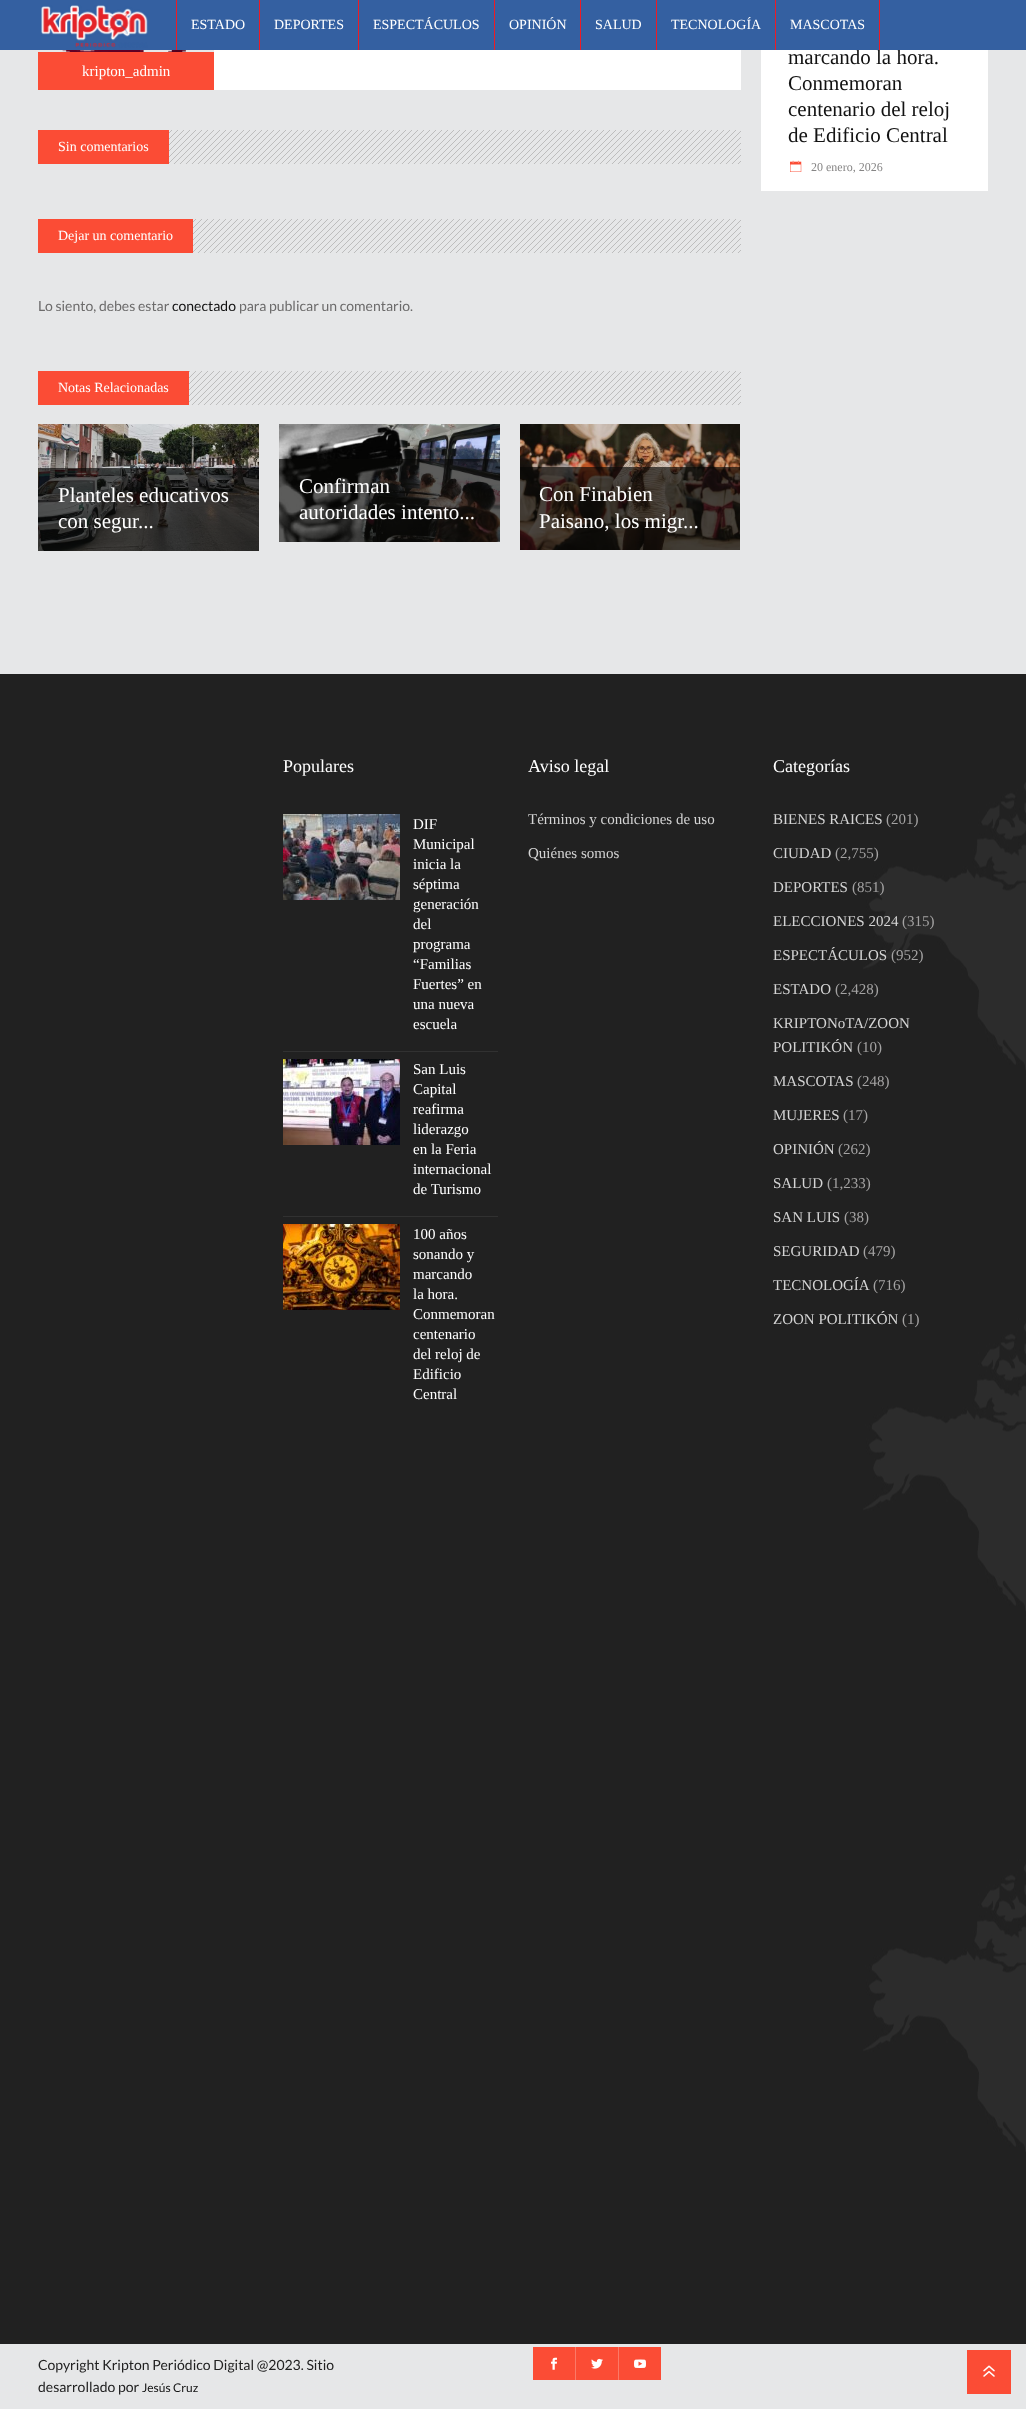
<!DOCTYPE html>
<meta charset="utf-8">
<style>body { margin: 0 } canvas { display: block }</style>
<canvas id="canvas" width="1026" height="2409"></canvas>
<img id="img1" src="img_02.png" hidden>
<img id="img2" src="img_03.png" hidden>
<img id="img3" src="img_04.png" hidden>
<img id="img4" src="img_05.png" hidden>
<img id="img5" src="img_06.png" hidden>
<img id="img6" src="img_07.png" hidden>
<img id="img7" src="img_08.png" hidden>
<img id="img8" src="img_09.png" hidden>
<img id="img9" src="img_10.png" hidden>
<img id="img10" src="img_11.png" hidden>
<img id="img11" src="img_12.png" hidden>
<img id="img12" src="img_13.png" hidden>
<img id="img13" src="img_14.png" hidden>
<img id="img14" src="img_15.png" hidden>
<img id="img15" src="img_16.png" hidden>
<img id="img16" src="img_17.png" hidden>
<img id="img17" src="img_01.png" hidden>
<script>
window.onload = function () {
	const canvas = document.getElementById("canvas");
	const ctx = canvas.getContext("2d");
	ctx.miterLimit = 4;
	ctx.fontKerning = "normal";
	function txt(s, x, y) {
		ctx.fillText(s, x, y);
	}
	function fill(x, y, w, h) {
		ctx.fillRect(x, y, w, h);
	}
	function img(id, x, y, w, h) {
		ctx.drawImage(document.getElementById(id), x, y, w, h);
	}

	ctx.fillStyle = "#E6E7E8";
	fill(0, 0, 1026, 2409);
	img("img1", 62, 50, 124, 2);
	ctx.fillStyle = "#FB4C35";
	fill(38, 52, 176, 38);
	ctx.fillStyle = "#FFFFFF";
	fill(214, 50, 527, 40);
	img("img2", 169, 130, 572, 34);
	ctx.fillStyle = "#FB4C35";
	fill(38, 130, 131, 34);
	img("img3", 193, 219, 548, 34);
	fill(38, 219, 155, 34);
	img("img4", 189, 371, 552, 34);
	fill(38, 371, 151, 34);
	img("img5", 38, 424, 221, 127);
	ctx.fillStyle = "rgba(8, 7, 6, 0.66)";
	fill(38, 468, 221, 83);
	img("img6", 279, 424, 221, 118);
	fill(279, 459, 221, 83);
	img("img7", 520, 424, 220, 126);
	fill(520, 467, 220, 83);
	ctx.fillStyle = "#FFFFFF";
	fill(761, 50, 227, 141);
	img("img8", 790, 160, 12, 12);
	ctx.fillStyle = "#212121";
	fill(0, 674, 1026, 1670);
	img("img9", 863, 782, 163, 1370);
	ctx.fillStyle = "#313131";
	fill(283, 1051, 215, 1);
	img("img10", 283, 814, 117, 86);
	fill(283, 1216, 215, 1);
	img("img11", 283, 1059, 117, 86);
	img("img12", 283, 1224, 117, 86);
	ctx.fillStyle = "#FB4C35";
	fill(533, 2347, 42, 33);
	img("img13", 551, 2357, 6, 13);
	ctx.fillStyle = "#FB7968";
	fill(575, 2347, 1, 33);
	ctx.fillStyle = "#FB4C35";
	fill(576, 2347, 42, 33);
	img("img14", 591, 2358, 12, 11);
	ctx.fillStyle = "#FB7968";
	fill(618, 2347, 1, 33);
	ctx.fillStyle = "#FB4C35";
	fill(619, 2347, 42, 33);
	img("img15", 634, 2359, 12, 9);
	fill(967, 2350, 44, 44);
	img("img16", 983, 2365, 12, 12);
	ctx.font = "15px Liberation Serif";
	ctx.fillStyle = "#FFFFFF";
	txt("kripton_admin", 82, 76);
	ctx.font = "14px Liberation Serif";
	txt("Sin comentarios", 58, 151);
	txt("Dejar un comentario", 58, 240);
	ctx.font = "14px Lato";
	ctx.fillStyle = "#6C6B6B";
	txt("Lo siento, debes estar", 38, 311);
	ctx.fillStyle = "#121212";
	txt("conectado", 172, 311);
	ctx.fillStyle = "#6C6B6B";
	txt("para publicar un comentario.", 239, 311);
	ctx.font = "14px Liberation Serif";
	ctx.fillStyle = "#FFFFFF";
	txt("Notas Relacionadas", 58, 392);
	ctx.font = "21px Liberation Serif";
	txt("Planteles educativos", 58, 502);
	txt("con segur...", 58, 528);
	txt("Confirman", 299, 493);
	txt("autoridades intento...", 299, 519);
	txt("Con Finabien", 539, 501);
	txt("Paisano, los migr...", 539, 528);
	ctx.fillStyle = "#121212";
	txt("marcando la hora.", 788, 64);
	ctx.fillStyle = "#3460A1";
	fill(0, 0, 1026, 50);
	ctx.font = "14px Liberation Serif";
	ctx.fillStyle = "#FFFFFF";
	txt("MASCOTAS", 790, 29);
	ctx.fillStyle = "#ED1B25";
	fill(775, 0, 1, 50);
	fill(879, 0, 1, 50);
	ctx.fillStyle = "#FFFFFF";
	txt("TECNOLOGÍA", 671, 29);
	ctx.fillStyle = "#ED1B25";
	fill(656, 0, 1, 50);
	ctx.fillStyle = "#FFFFFF";
	txt("SALUD", 595, 29);
	ctx.fillStyle = "#ED1B25";
	fill(580, 0, 1, 50);
	ctx.fillStyle = "#FFFFFF";
	txt("OPINIÓN", 509, 29);
	ctx.fillStyle = "#ED1B25";
	fill(494, 0, 1, 50);
	ctx.fillStyle = "#FFFFFF";
	txt("ESPECTÁCULOS", 373, 29);
	ctx.fillStyle = "#ED1B25";
	fill(358, 0, 1, 50);
	ctx.fillStyle = "#FFFFFF";
	txt("DEPORTES", 274, 29);
	ctx.fillStyle = "#ED1B25";
	fill(259, 0, 1, 50);
	ctx.fillStyle = "#FFFFFF";
	txt("ESTADO", 191, 29);
	ctx.fillStyle = "#ED1B25";
	fill(176, 0, 1, 50);
	img("img17", 41, 5, 107, 43);
	ctx.font = "21px Liberation Serif";
	ctx.fillStyle = "#121212";
	txt("Conmemoran", 788, 90);
	txt("centenario del reloj", 788, 116);
	txt("de Edificio Central", 788, 142);
	ctx.font = "12px Liberation Serif";
	ctx.fillStyle = "#868585";
	txt("20 enero, 2026", 811, 171);
	ctx.font = "18px Liberation Serif";
	ctx.fillStyle = "#FFFFFF";
	txt("Populares", 283, 772);
	ctx.font = "15px Liberation Serif";
	txt("DIF", 413, 829);
	txt("Municipal", 413, 849);
	txt("inicia la", 413, 869);
	txt("séptima", 413, 889);
	txt("generación", 413, 909);
	txt("del", 413, 929);
	txt("programa", 413, 949);
	txt("“Familias", 413, 969);
	txt("Fuertes” en", 413, 989);
	txt("una nueva", 413, 1009);
	txt("escuela", 413, 1029);
	txt("San Luis", 413, 1074);
	txt("Capital", 413, 1094);
	txt("reafirma", 413, 1114);
	txt("liderazgo", 413, 1134);
	txt("en la Feria", 413, 1154);
	txt("internacional", 413, 1174);
	txt("de Turismo", 413, 1194);
	txt("100 años", 413, 1239);
	txt("sonando y", 413, 1259);
	txt("marcando", 413, 1279);
	txt("la hora.", 413, 1299);
	txt("Conmemoran", 413, 1319);
	txt("centenario", 413, 1339);
	txt("del reloj de", 413, 1359);
	txt("Edificio", 413, 1379);
	txt("Central", 413, 1399);
	ctx.font = "18px Liberation Serif";
	txt("Aviso legal", 528, 772);
	ctx.font = "15px Liberation Serif";
	ctx.fillStyle = "#D4D4D4";
	txt("Términos y condiciones de uso", 528, 824);
	txt("Quiénes somos", 528, 858);
	ctx.font = "18px Liberation Serif";
	ctx.fillStyle = "#FFFFFF";
	txt("Categorías", 773, 772);
	ctx.font = "15px Liberation Serif";
	ctx.fillStyle = "#D4D4D4";
	txt("BIENES RAICES", 773, 824);
	ctx.fillStyle = "#A4A3A3";
	txt("(201)", 886, 824);
	ctx.fillStyle = "#D4D4D4";
	txt("CIUDAD", 773, 858);
	ctx.fillStyle = "#A4A3A3";
	txt("(2,755)", 835, 858);
	ctx.fillStyle = "#D4D4D4";
	txt("DEPORTES", 773, 892);
	ctx.fillStyle = "#A4A3A3";
	txt("(851)", 852, 892);
	ctx.fillStyle = "#D4D4D4";
	txt("ELECCIONES 2024", 773, 926);
	ctx.fillStyle = "#A4A3A3";
	txt("(315)", 902, 926);
	ctx.fillStyle = "#D4D4D4";
	txt("ESPECTÁCULOS", 773, 960);
	ctx.fillStyle = "#A4A3A3";
	txt("(952)", 891, 960);
	ctx.fillStyle = "#D4D4D4";
	txt("ESTADO", 773, 994);
	ctx.fillStyle = "#A4A3A3";
	txt("(2,428)", 835, 994);
	ctx.fillStyle = "#D4D4D4";
	txt("KRIPTONoTA/ZOON", 773, 1028);
	txt("POLITIKÓN", 773, 1052);
	ctx.fillStyle = "#A4A3A3";
	txt("(10)", 857, 1052);
	ctx.fillStyle = "#D4D4D4";
	txt("MASCOTAS", 773, 1086);
	ctx.fillStyle = "#A4A3A3";
	txt("(248)", 857, 1086);
	ctx.fillStyle = "#D4D4D4";
	txt("MUJERES", 773, 1120);
	ctx.fillStyle = "#A4A3A3";
	txt("(17)", 843, 1120);
	ctx.fillStyle = "#D4D4D4";
	txt("OPINIÓN", 773, 1154);
	ctx.fillStyle = "#A4A3A3";
	txt("(262)", 838, 1154);
	ctx.fillStyle = "#D4D4D4";
	txt("SALUD", 773, 1188);
	ctx.fillStyle = "#A4A3A3";
	txt("(1,233)", 827, 1188);
	ctx.fillStyle = "#D4D4D4";
	txt("SAN LUIS", 773, 1222);
	ctx.fillStyle = "#A4A3A3";
	txt("(38)", 844, 1222);
	ctx.fillStyle = "#D4D4D4";
	txt("SEGURIDAD", 773, 1256);
	ctx.fillStyle = "#A4A3A3";
	txt("(479)", 863, 1256);
	ctx.fillStyle = "#D4D4D4";
	txt("TECNOLOGÍA", 773, 1290);
	ctx.fillStyle = "#A4A3A3";
	txt("(716)", 873, 1290);
	ctx.fillStyle = "#D4D4D4";
	txt("ZOON POLITIKÓN", 773, 1324);
	ctx.fillStyle = "#A4A3A3";
	txt("(1)", 902, 1324);
	ctx.font = "14px Lato";
	ctx.fillStyle = "#212121";
	txt("Copyright Kripton Periódico Digital @2023. Sitio", 38, 2370);
	txt("desarrollado por", 38, 2392);
	ctx.font = "12px Lato";
	ctx.fillStyle = "#121212";
	txt("Jesús Cruz", 142, 2392);
};
</script>
